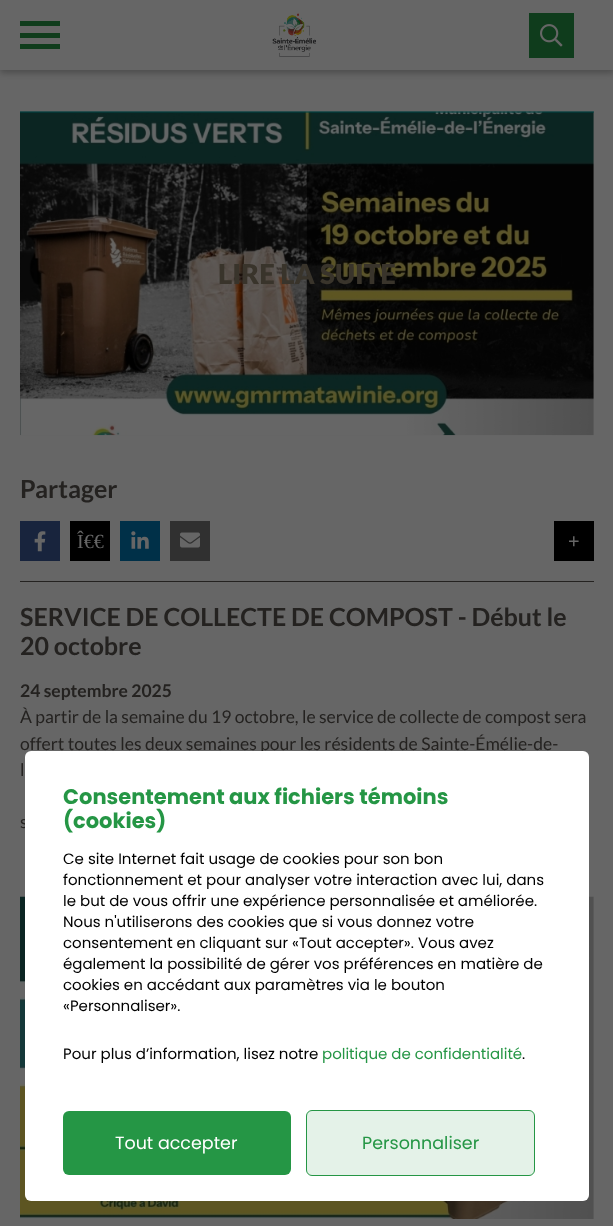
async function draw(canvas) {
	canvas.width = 613;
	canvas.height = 1226;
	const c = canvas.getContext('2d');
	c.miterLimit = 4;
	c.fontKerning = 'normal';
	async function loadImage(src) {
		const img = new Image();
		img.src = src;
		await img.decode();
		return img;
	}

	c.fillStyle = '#666';
	c.fillRect(0, 0, 613, 1226);
	c.fillStyle = '#00000040';
	c.filter = 'blur(3px)';
	c.beginPath();
	c.rect(0, 3, 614, 70);
	c.fill();
	c.filter = 'none';
	for (const [x, y, w, h, color] of [
		[0, 0, 613, 70, '#666'],
		[20, 21, 40, 5, '#0f3c1c'],
		[20, 33, 40, 5, '#0f3c1c'],
		[20, 44, 40, 5, '#0f3c1c'],
	]) {
		c.fillStyle = color;
		c.fillRect(x, y, w, h);
	}
	c.drawImage(await loadImage('img1.png'), 272, 13, 44, 44);
	c.fillRect(529, 13, 45, 45);
	c.drawImage(await loadImage('img2.png'), 540, 24, 23, 23);
	c.fillStyle = '#242220';
	c.fillRect(20, 581, 574, 1);
	c.drawImage(await loadImage('img3.png'), 20, 111, 574, 325);
	c.fillStyle = '#00464680';
	c.fillRect(20, 111, 574, 2);
	c.font = '900 27.5px Lato';
	c.fillStyle = '#39342b';
	c.fillText('LIRE LA SUITE', 218, 284);
	c.font = 'bold 25px Lato';
	c.fillStyle = '#242220';
	c.fillText('Partager', 20, 498);
	c.fillStyle = '#18243d';
	c.fillRect(20, 521, 40, 40);
	c.drawImage(await loadImage('img4.png'), 34, 531, 12, 21);
	c.fillStyle = '#000';
	c.fillRect(70, 521, 40, 40);
	c.font = '20px Liberation Serif';
	c.fillStyle = '#666';
	c.fillText('Î€€', 77, 548);
	c.fillStyle = '#003048';
	c.fillRect(120, 521, 40, 40);
	c.drawImage(await loadImage('img5.png'), 131, 531, 18, 18);
	c.fillStyle = '#303030';
	c.fillRect(170, 521, 40, 40);
	c.drawImage(await loadImage('img6.png'), 180, 532, 20, 16);
	c.fillStyle = '#000';
	c.fillRect(554, 521, 40, 40);
	c.font = '20px Lato';
	c.fillStyle = '#666';
	c.fillText('+', 568, 548);
	c.font = 'bold 25px Lato';
	c.fillStyle = '#242220';
	c.fillText('SERVICE DE COLLECTE DE COMPOST - Début le', 20, 626);
	c.fillText('20 octobre', 20, 655);
	c.font = 'bold 17.5px Lato';
	c.fillText('24 septembre 2025', 20, 697);
	c.font = '17.5px Lato';
	for (const [text, x, y] of [
		['À partir de la semaine du 19 octobre, le service de collecte de compost sera', 20, 723],
		['offert toutes les deux semaines pour les résidents de Sainte-Émélie-de-', 20, 750],
		['l', 20, 776],
		['s', 20, 828],
	]) {
		c.fillText(text, x, y);
	}
	c.drawImage(await loadImage('img7.png'), 20, 896, 574, 323);
	c.fillStyle = '#fff';
	c.beginPath();
	c.roundRect(25, 751, 564, 450, 6);
	c.fill();
	c.font = 'bold 21px Poppins';
	c.fillStyle = '#259645';
	c.fillText('Consentement aux fichiers témoins', 63, 804);
	c.fillText('(cookies)', 63, 828);
	c.font = '15px Poppins';
	c.fillStyle = '#000';
	for (const [text, x, y] of [
		['Ce site Internet fait usage de cookies pour son bon', 63, 864],
		['fonctionnement et pour analyser votre interaction avec lui, dans', 63, 885],
		['le but de vous offrir une expérience personnalisée et améliorée.', 63, 906],
		['Nous n\'utiliserons des cookies que si vous donnez votre', 63, 927],
		['consentement en cliquant sur «Tout accepter». Vous avez', 63, 948],
		['également la possibilité de gérer vos préférences en matière de', 63, 969],
		['cookies en accédant aux paramètres via le bouton', 63, 990],
		['«Personnaliser».', 63, 1011],
		['Pour plus d’information, lisez notre', 63, 1059],
	]) {
		c.fillText(text, x, y);
	}
	c.fillStyle = '#259645';
	c.fillText('politique de confidentialité', 322, 1059);
	c.fillStyle = '#000';
	c.fillText('.', 522, 1059);
	c.fillStyle = '#259645';
	c.beginPath();
	c.roundRect(63, 1111, 228, 64, 6);
	c.fill();
	c.font = '17.5px Poppins';
	c.fillStyle = '#fff';
	c.fillText('Tout accepter', 115, 1149);
	c.fillStyle = '#e4f2e8';
	c.beginPath();
	c.roundRect(306.5, 1110.5, 228, 65, 5.5);
	c.fill();
	c.strokeStyle = '#259645';
	c.stroke();
	c.fillStyle = '#259645';
	c.fillText('Personnaliser', 362, 1149);
}

draw(document.querySelector('canvas'));
